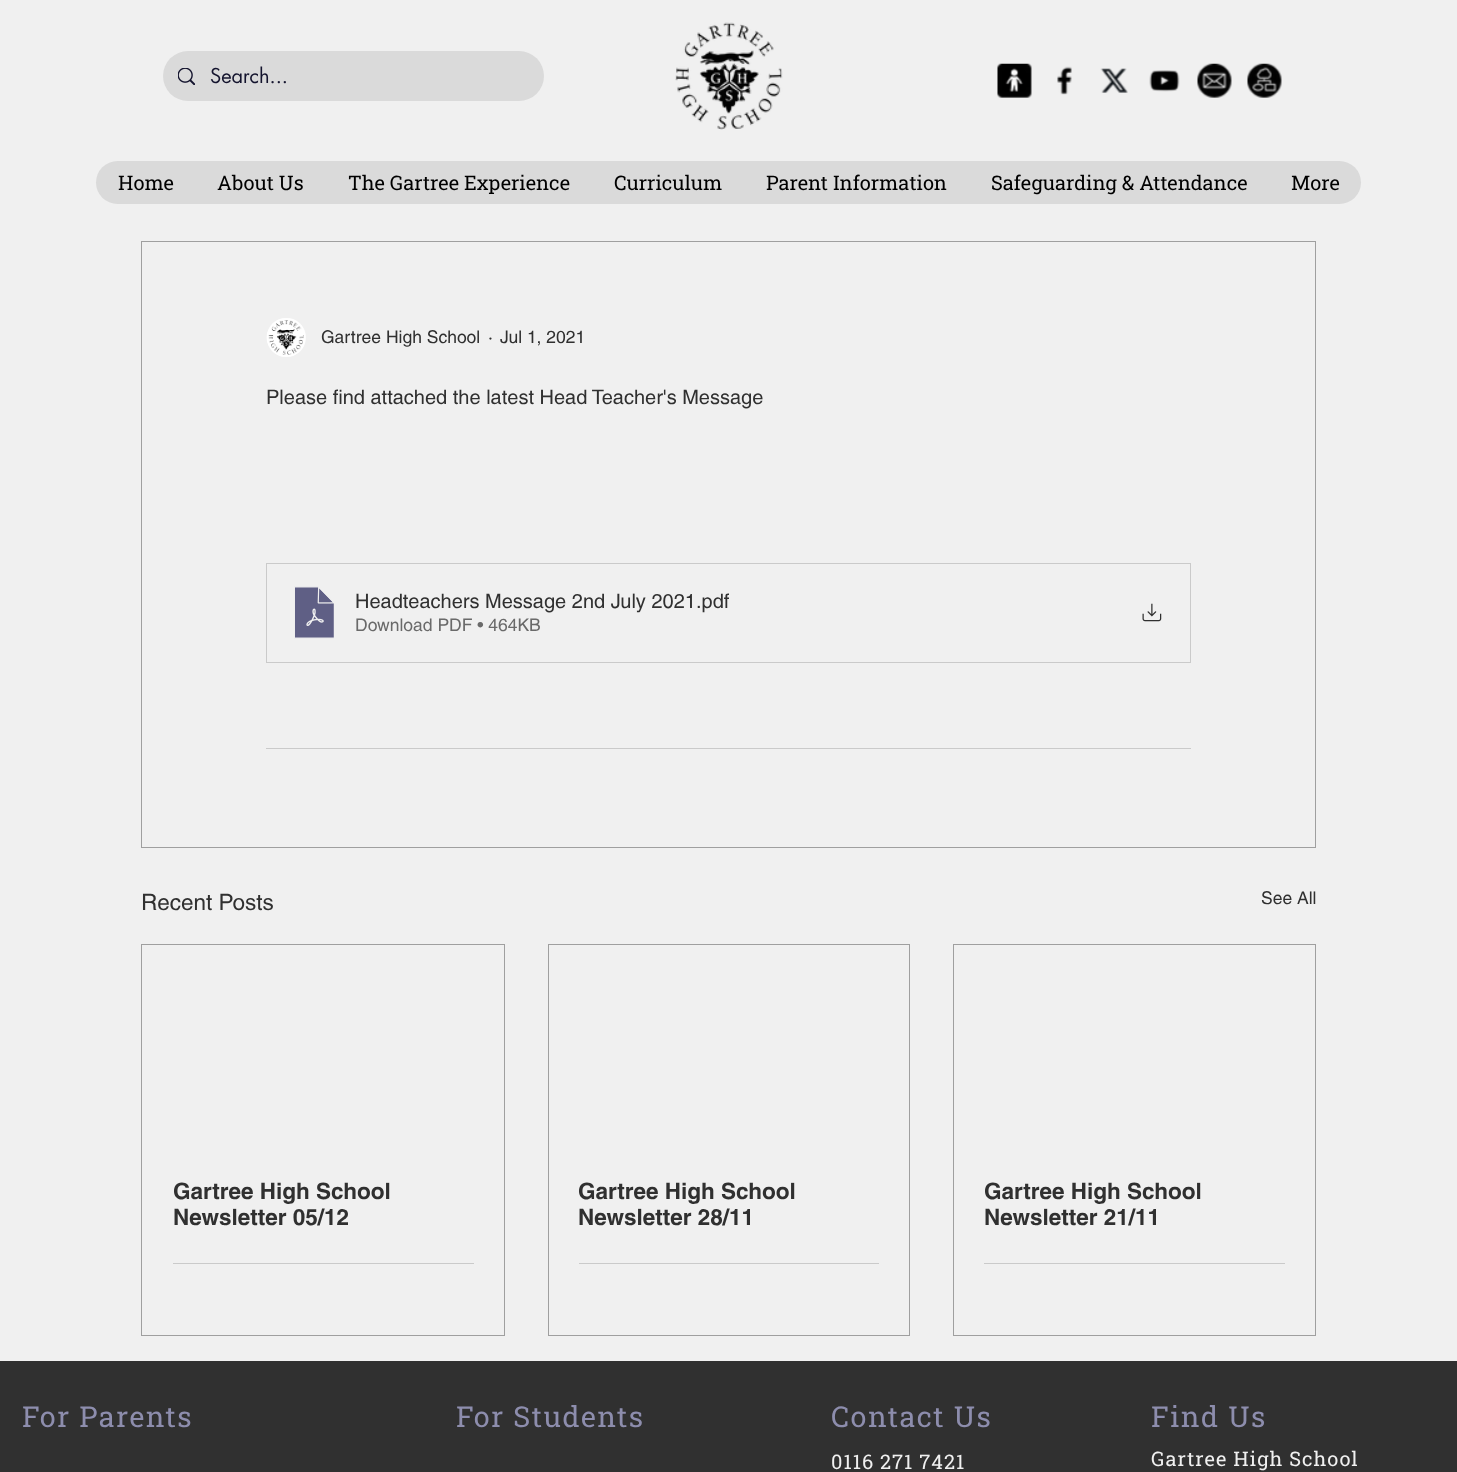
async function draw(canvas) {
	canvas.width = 1457;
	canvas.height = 1472;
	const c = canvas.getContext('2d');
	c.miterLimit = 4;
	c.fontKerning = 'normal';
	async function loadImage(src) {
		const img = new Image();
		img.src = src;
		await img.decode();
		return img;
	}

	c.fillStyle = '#f0f0f0';
	c.fillRect(0, 0, 1457, 1472);
	c.fillStyle = '#dadada';
	c.beginPath();
	c.roundRect(163, 51, 381, 50, 25);
	c.fill();
	c.drawImage(await loadImage('img1.png'), 178, 68, 17, 17);
	c.font = '20px futura';
	c.fillStyle = '#14142e';
	c.fillText('Search...', 210, 83);
	c.drawImage(await loadImage('img2.png'), 675, 22, 108, 108);
	c.drawImage(await loadImage('img3.png'), 997, 63, 35, 35);
	c.drawImage(await loadImage('img4.png'), 1057, 66, 15, 29);
	c.drawImage(await loadImage('img5.png'), 1100, 68, 28, 25);
	c.drawImage(await loadImage('img6.png'), 1149, 70, 31, 22);
	c.drawImage(await loadImage('img7.png'), 1197, 63, 35, 35);
	c.drawImage(await loadImage('img8.png'), 1247, 63, 35, 35);
	c.fillStyle = '#dadada';
	c.beginPath();
	c.roundRect(96, 161, 1265, 43, 21.5);
	c.fill();
	c.font = '20px Roboto Slab';
	c.fillStyle = '#000';
	for (const [text, x, y] of [
		['Home', 118, 190],
		['About Us', 217, 190],
		['The Gartree Experience', 348, 190],
		['Curriculum', 614, 190],
		['Parent Information', 766, 190],
		['Safeguarding & Attendance', 991, 190],
		['More', 1291, 190],
	]) {
		c.fillText(text, x, y);
	}
	c.strokeStyle = '#9f9f9f';
	c.strokeRect(141.5, 241.5, 1174, 606);
	c.drawImage(await loadImage('img9.png'), 266, 318, 40, 39);
	c.font = '17.5px helvetica';
	c.fillStyle = '#303030';
	for (const [text, x, y] of [
		['Gartree High School', 321, 343],
		['·', 488, 343],
		['Jul 1, 2021', 500, 343],
	]) {
		c.fillText(text, x, y);
	}
	c.font = '20px helvetica';
	c.fillText('Please find attached the latest Head Teacher\'s Message', 266, 404);
	c.strokeStyle = '#cacaca';
	c.strokeRect(266.5, 563.5, 924, 99);
	c.drawImage(await loadImage('img10.png'), 294, 586, 40, 53);
	c.fillText('Headteachers Message 2nd July 2021', 355, 608);
	c.fillText('.pdf', 696, 608);
	c.font = '17.5px helvetica';
	c.fillStyle = '#6a6a6a';
	c.fillText('Download PDF • 464KB', 355, 631);
	c.drawImage(await loadImage('img11.png'), 1142, 603, 20, 19);
	c.fillStyle = '#cacaca';
	c.fillRect(266, 748, 925, 1);
	c.font = '22.5px helvetica';
	c.fillStyle = '#303030';
	c.fillText('Recent Posts', 141, 910);
	c.font = '17.5px helvetica';
	c.fillText('See All', 1261, 904);
	c.strokeStyle = '#9f9f9f';
	c.strokeRect(141.5, 944.5, 363, 391);
	c.font = 'bold 22.5px helvetica';
	c.fillText('Gartree High School', 173, 1199);
	c.fillText('Newsletter 05/12', 173, 1225);
	c.fillStyle = '#cacaca';
	c.fillRect(173, 1263, 301, 1);
	c.strokeRect(548.5, 944.5, 361, 391);
	c.fillStyle = '#303030';
	c.fillText('Gartree High School', 578, 1199);
	c.fillText('Newsletter 28/11', 578, 1225);
	c.fillStyle = '#cacaca';
	c.fillRect(579, 1263, 300, 1);
	c.strokeRect(953.5, 944.5, 362, 391);
	c.fillStyle = '#303030';
	c.fillText('Gartree High School', 984, 1199);
	c.fillText('Newsletter 21/11', 984, 1225);
	c.fillStyle = '#cacaca';
	c.fillRect(984, 1263, 301, 1);
	c.fillStyle = '#303030';
	c.fillRect(0, 1361, 1457, 111);
	c.letterSpacing = '1.5px';
	c.font = '28.75px Roboto Slab';
	c.fillStyle = '#8d8dad';
	for (const [text, x, y] of [
		['For Parents', 22, 1427],
		['For Students', 456, 1427],
		['Contact Us', 831, 1427],
	]) {
		c.fillText(text, x, y);
	}
	c.letterSpacing = '1px';
	c.font = '20px Roboto Slab';
	c.fillStyle = '#f0f0f0';
	c.fillText('0116 271 7421', 831, 1469);
	c.letterSpacing = '1.5px';
	c.font = '28.75px Roboto Slab';
	c.fillStyle = '#8d8dad';
	c.fillText('Find Us', 1151, 1427);
	c.letterSpacing = '1px';
	c.font = '20px Roboto Slab';
	c.fillStyle = '#f0f0f0';
	c.fillText('Gartree High School', 1151, 1466);
}

draw(document.querySelector('canvas'));
